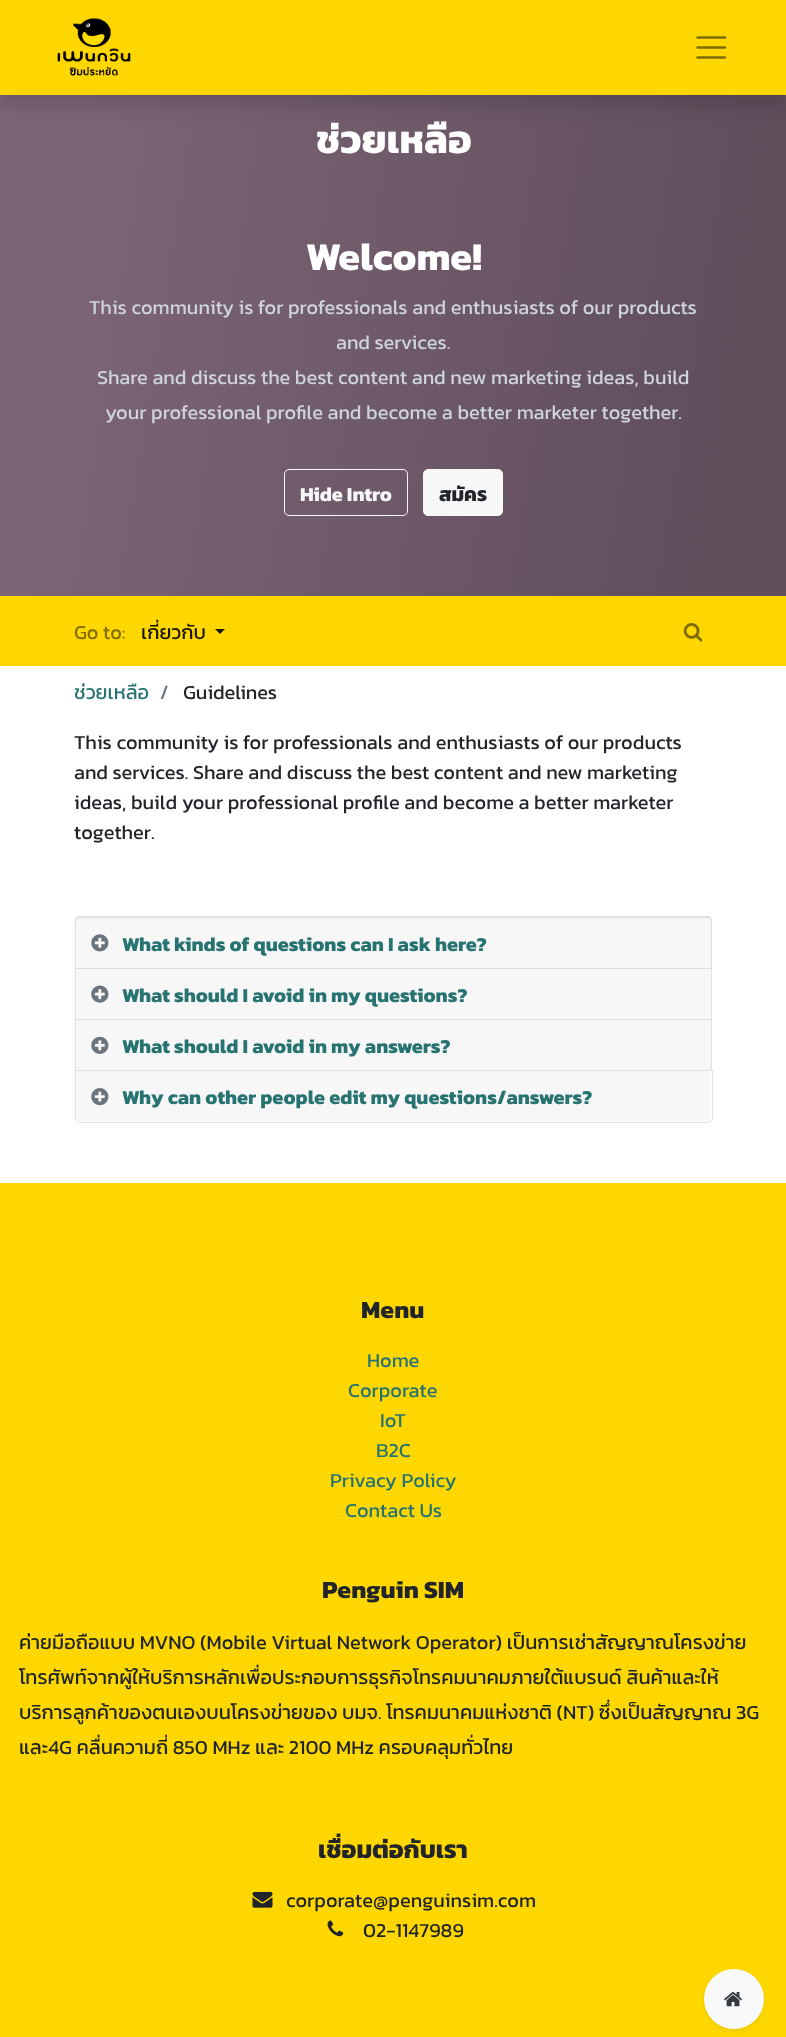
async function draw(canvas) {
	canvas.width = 786;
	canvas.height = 2037;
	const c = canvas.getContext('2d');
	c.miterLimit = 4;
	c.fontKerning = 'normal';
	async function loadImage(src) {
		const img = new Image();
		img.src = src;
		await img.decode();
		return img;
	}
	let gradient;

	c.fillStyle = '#fff';
	c.fillRect(0, 0, 786, 2037);
	gradient = c.createLinearGradient(-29, 279, 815, 412);
	gradient.addColorStop(0.1, '#7c6576');
	gradient.addColorStop(0.9, '#604e5b');
	c.fillStyle = gradient;
	c.fillRect(0, 95, 786, 501);
	c.fillStyle = '#00000026';
	c.filter = 'blur(10px)';
	c.beginPath();
	c.rect(0, 10, 786, 95);
	c.fill();
	c.filter = 'none';
	c.fillStyle = '#ffd700';
	c.fillRect(0, 0, 786, 95);
	c.drawImage(await loadImage('img1.png'), 57, 18, 74, 58);
	c.beginPath();
	c.moveTo(697.5, 37.5);
	c.lineTo(725, 37.5);
	c.moveTo(697.5, 47.5);
	c.lineTo(725, 47.5);
	c.moveTo(697.5, 57.5);
	c.lineTo(725, 57.5);
	c.strokeStyle = '#806c00';
	c.lineWidth = 2.5;
	c.lineCap = 'round';
	c.stroke();
	c.font = 'bold 39.5px Kanit';
	c.fillStyle = '#fff';
	c.fillText('ช่วยเหลือ', 316, 153);
	c.fillText('Welcome!', 306, 270);
	c.font = '20px Kanit';
	c.fillStyle = '#ced4da';
	for (const [text, x, y] of [
		['This community is for professionals and enthusiasts of our products', 89, 314],
		['and services.', 336, 349],
		['Share and discuss the best content and new marketing ideas, build', 97, 384],
		['your professional profile and become a better marketer together.', 105, 419],
	]) {
		c.fillText(text, x, y);
	}
	c.beginPath();
	c.roundRect(284.5, 469.5, 123, 46, 4.5);
	c.strokeStyle = '#f7f7f7';
	c.lineWidth = 1;
	c.stroke();
	c.font = 'bold 20px Kanit';
	c.fillStyle = '#f7f7f7';
	c.fillText('Hide Intro', 300, 501);
	c.beginPath();
	c.roundRect(423.5, 469.5, 79, 46, 4.5);
	c.fill();
	c.stroke();
	c.fillStyle = '#212529';
	c.fillText('สมัคร', 439, 501);
	c.fillStyle = '#ffd700';
	c.fillRect(0, 596, 786, 70);
	c.font = '20px Kanit';
	c.fillStyle = '#806c00';
	c.fillText('Go to:', 74, 639);
	c.fillStyle = '#1a1600';
	c.fillText('เกี่ยวกับ', 141, 639);
	c.beginPath();
	c.moveTo(215, 629);
	c.lineTo(225, 629);
	c.lineTo(220, 634);
	c.closePath();
	c.fill();
	c.drawImage(await loadImage('img2.png'), 683, 623, 20, 19);
	c.fillStyle = '#267372';
	c.fillText('ช่วยเหลือ', 74, 699);
	c.fillStyle = '#6c757d';
	c.fillText('/', 160, 699);
	c.fillStyle = '#212529';
	for (const [text, x, y] of [
		['Guidelines', 183, 699],
		['This community is for professionals and enthusiasts of our products', 74, 749],
		['and services. Share and discuss the best content and new marketing', 74, 779],
		['ideas, build your professional profile and become a better marketer', 74, 809],
		['together.', 74, 839],
	]) {
		c.fillText(text, x, y);
	}
	c.fillStyle = '#dfdfdf';
	c.beginPath();
	c.moveTo(80, 916);
	c.lineTo(708, 916);
	c.bezierCurveTo(710, 916, 712, 918, 712, 921);
	c.lineTo(712, 968);
	c.lineTo(75, 968);
	c.lineTo(75, 921);
	c.bezierCurveTo(75, 918, 77, 916, 80, 916);
	c.closePath();
	c.moveTo(80, 918);
	c.lineTo(708, 918);
	c.bezierCurveTo(710, 918, 711, 919, 711, 921);
	c.lineTo(711, 968);
	c.lineTo(76, 968);
	c.lineTo(76, 921);
	c.bezierCurveTo(76, 919, 78, 918, 80, 918);
	c.closePath();
	c.fill('evenodd');
	c.fillStyle = '#00000008';
	c.fillRect(76, 918, 635, 50);
	c.drawImage(await loadImage('img3.png'), 91, 934, 18, 18);
	c.font = 'bold 20px Kanit';
	c.fillStyle = '#267372';
	c.fillText('What kinds of questions can I ask here?', 122, 951);
	c.fillStyle = '#dfdfdf';
	c.beginPath();
	c.moveTo(75, 968);
	c.lineTo(712, 968);
	c.lineTo(711, 969);
	c.lineTo(76, 969);
	c.closePath();
	c.fill();
	c.fillStyle = '#0000001f';
	c.beginPath();
	c.moveTo(712, 968);
	c.lineTo(712, 1019);
	c.lineTo(711, 1019);
	c.lineTo(711, 969);
	c.closePath();
	c.fill();
	c.beginPath();
	c.moveTo(75, 1019);
	c.lineTo(75, 968);
	c.lineTo(76, 969);
	c.lineTo(76, 1019);
	c.closePath();
	c.fill();
	c.fillStyle = '#f7f7f7';
	c.fillRect(76, 969, 635, 50);
	c.drawImage(await loadImage('img4.png'), 91, 985, 18, 18);
	c.fillStyle = '#267372';
	c.fillText('What should I avoid in my questions?', 122, 1002);
	c.fillStyle = '#dfdfdf';
	c.beginPath();
	c.moveTo(75, 1019);
	c.lineTo(712, 1019);
	c.lineTo(711, 1020);
	c.lineTo(76, 1020);
	c.closePath();
	c.fill();
	c.fillStyle = '#0000001f';
	c.beginPath();
	c.moveTo(712, 1019);
	c.lineTo(712, 1070);
	c.lineTo(711, 1070);
	c.lineTo(711, 1020);
	c.closePath();
	c.fill();
	c.beginPath();
	c.moveTo(75, 1070);
	c.lineTo(75, 1019);
	c.lineTo(76, 1020);
	c.lineTo(76, 1070);
	c.closePath();
	c.fill();
	c.fillStyle = '#f7f7f7';
	c.fillRect(76, 1020, 635, 50);
	c.drawImage(await loadImage('img5.png'), 91, 1036, 18, 18);
	c.fillStyle = '#267372';
	c.fillText('What should I avoid in my answers?', 122, 1053);
	c.beginPath();
	c.roundRect(75.5, 1070.5, 637, 52, [0, 0, 4.5, 4.5]);
	c.strokeStyle = '#dfdfdf';
	c.stroke();
	c.fillStyle = '#f7f7f7';
	c.beginPath();
	c.roundRect(76, 1071, 635, 50, [0, 0, 4, 4]);
	c.fill();
	c.drawImage(await loadImage('img6.png'), 91, 1088, 18, 18);
	c.fillStyle = '#267372';
	c.fillText('Why can other people edit my questions/answers?', 122, 1104);
	c.fillStyle = '#ffd700';
	c.fillRect(0, 1183, 786, 854);
	c.font = 'bold 25px Kanit';
	c.fillStyle = '#212529';
	c.fillText('Menu', 361, 1318);
	c.font = '20px Kanit';
	c.fillStyle = '#267372';
	for (const [text, x, y] of [
		['Home', 367, 1367],
		['Corporate', 348, 1397],
		['IoT', 380, 1427],
		['B2C', 376, 1457],
		['Privacy Policy', 330, 1487],
		['Contact Us', 345, 1517],
	]) {
		c.fillText(text, x, y);
	}
	c.font = 'bold 25px Kanit';
	c.fillStyle = '#212529';
	c.fillText('Penguin SIM', 322, 1598);
	c.font = '20px Kanit';
	for (const [text, x, y] of [
		['ค่ายมือถือแบบ MVNO (Mobile Virtual Network Operator) เป็นการเช่าสัญญาณโครงข่าย', 19, 1649],
		['โทรศัพท์จากผู้ให้บริการหลักเพื่อประกอบการธุรกิจโทรคมนาคมภายใต้แบรนด์ สินค้าและให้', 19, 1684],
		['บริการลูกค้าของตนเองบนโครงข่ายของ บมจ. โทรคมนาคมแห่งชาติ (NT) ซึ่งเป็นสัญญาณ 3G', 19, 1719],
		['และ4G คลื่นความถี่ 850 MHz และ 2100 MHz ครอบคลุมทั่วไทย', 19, 1754],
	]) {
		c.fillText(text, x, y);
	}
	c.font = 'bold 25px Kanit';
	c.fillText('เชื่อมต่อกับเรา', 318, 1858);
	c.drawImage(await loadImage('img7.png'), 252, 1891, 21, 17);
	c.font = '20px Kanit';
	c.fillText('corporate@penguinsim.com', 286, 1907);
	c.drawImage(await loadImage('img8.png'), 327, 1920, 17, 17);
	c.fillText('02-1147989', 363, 1937);
	c.fillStyle = '#00000012';
	c.filter = 'blur(2.5px)';
	c.beginPath();
	c.roundRect(704, 1971, 60, 60, 30);
	c.fill();
	c.filter = 'none';
	c.fillStyle = '#f8f9fa';
	c.beginPath();
	c.arc(734, 1999, 30, 0, 2 * Math.PI);
	c.fill();
	c.drawImage(await loadImage('img9.png'), 724, 1991, 18, 16);
}

draw(document.querySelector('canvas'));
